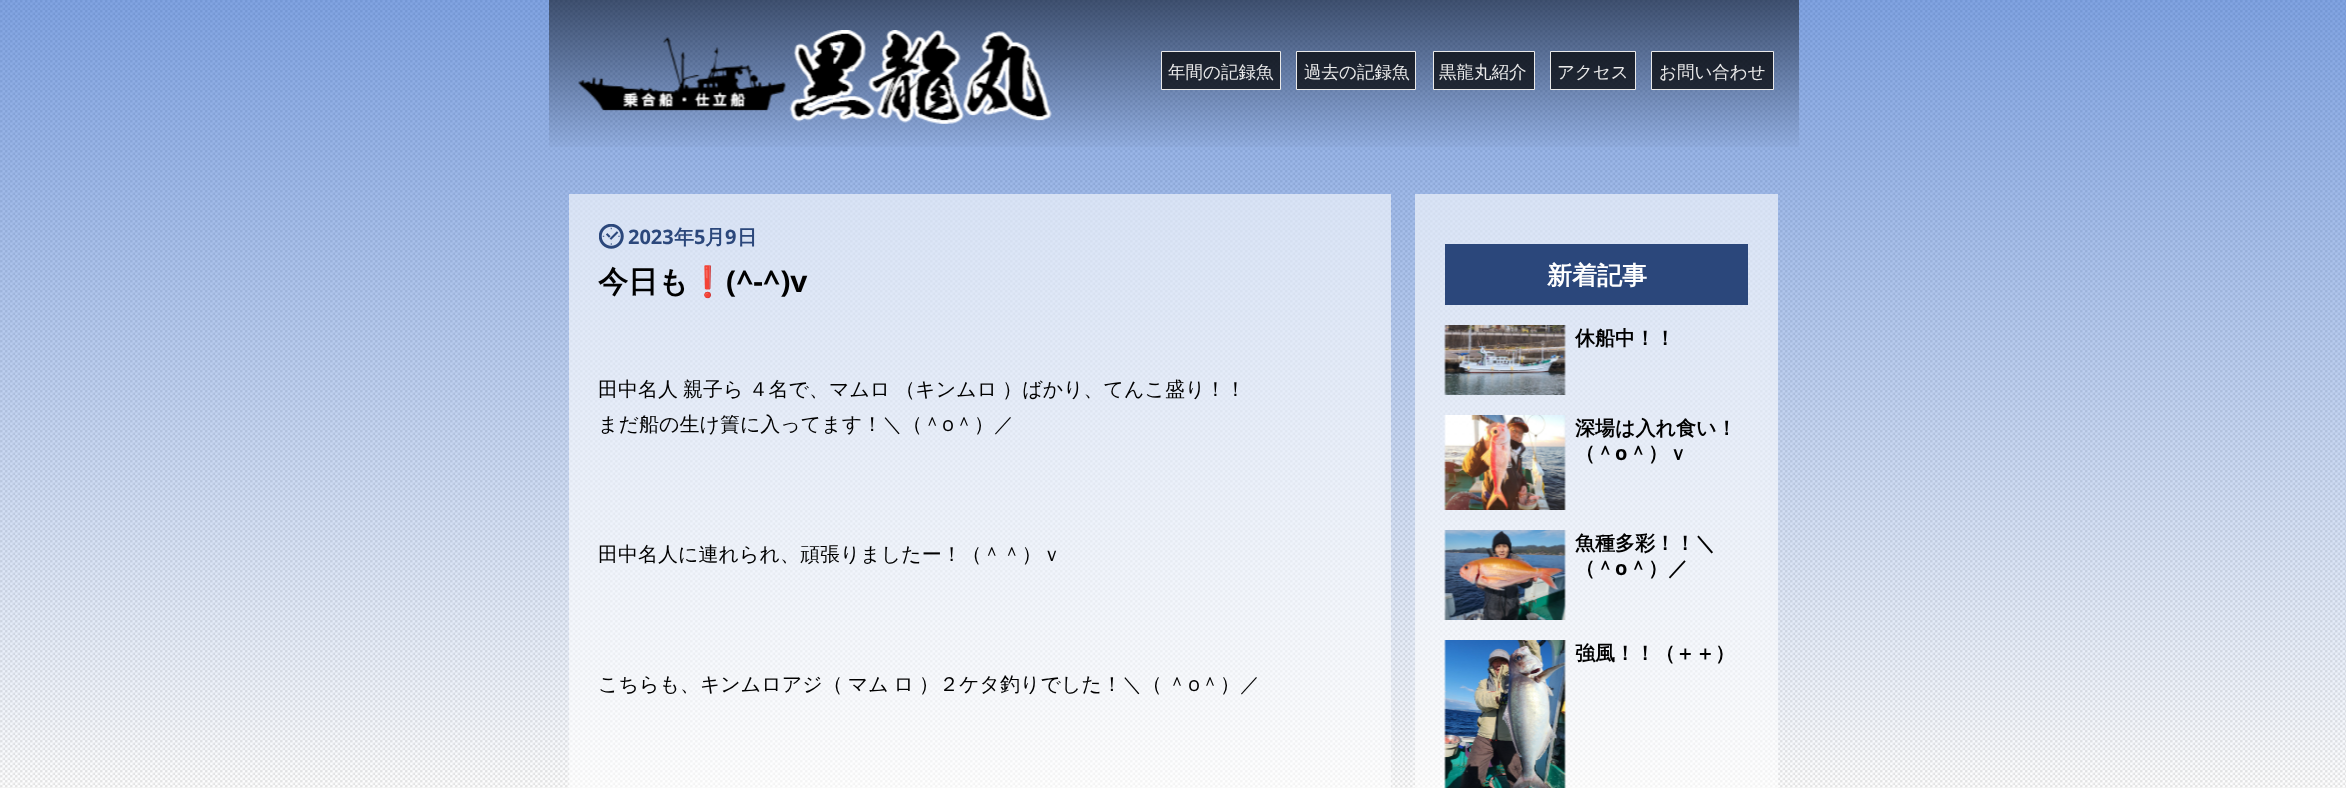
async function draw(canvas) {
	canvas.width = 2346;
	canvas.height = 788;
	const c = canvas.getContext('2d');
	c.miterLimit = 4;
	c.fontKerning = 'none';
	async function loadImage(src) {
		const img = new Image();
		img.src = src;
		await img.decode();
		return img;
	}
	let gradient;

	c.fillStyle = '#fff';
	c.fillRect(0, 0, 2346, 788);
	c.drawImage(await loadImage('img1.png'), 0, 0, 2346, 788);
	gradient = c.createLinearGradient(1174, 0, 1174, 154);
	gradient.addColorStop(0, '#00000080');
	gradient.addColorStop(1, '#00000000');
	c.fillStyle = gradient;
	c.fillRect(549, 0, 1250, 147);
	c.drawImage(await loadImage('img2.png'), 578, 30, 474, 94);
	c.fillStyle = '#000000b3';
	c.beginPath();
	c.rect(1161.5, 51.5, 119, 38);
	c.fill();
	c.strokeStyle = '#eaeaea';
	c.stroke();
	c.font = '500 17.5px WenQuanYi Zen Hei';
	c.fillStyle = '#eaeaea';
	c.fillText('年間の記録魚', 1168, 78);
	c.fillStyle = '#000000b3';
	c.beginPath();
	c.rect(1296.5, 51.5, 119, 38);
	c.fill();
	c.stroke();
	c.fillStyle = '#eaeaea';
	c.fillText('過去の記録魚', 1304, 78);
	c.fillStyle = '#000000b3';
	c.beginPath();
	c.rect(1433.5, 51.5, 101, 38);
	c.fill();
	c.stroke();
	c.fillStyle = '#eaeaea';
	c.fillText('黒龍丸紹介', 1439, 78);
	c.fillStyle = '#000000b3';
	c.beginPath();
	c.rect(1550.5, 51.5, 85, 38);
	c.fill();
	c.stroke();
	c.fillStyle = '#eaeaea';
	c.fillText('アクセス', 1557, 78);
	c.fillStyle = '#000000b3';
	c.beginPath();
	c.rect(1651.5, 51.5, 122, 38);
	c.fill();
	c.stroke();
	c.fillStyle = '#eaeaea';
	c.fillText('お問い合わせ', 1659, 78);
	c.fillStyle = '#ffffff99';
	c.fillRect(569, 194, 822, 594);
	c.drawImage(await loadImage('img3.png'), 599, 224, 25, 25);
	c.font = 'bold 20px Open Sans';
	c.fillStyle = '#2b477b';
	c.fillText('2023', 628, 244);
	c.font = 'bold 20px WenQuanYi Zen Hei';
	c.fillText('年', 674, 244);
	c.font = 'bold 20px Open Sans';
	c.fillText('5', 694, 244);
	c.font = 'bold 20px WenQuanYi Zen Hei';
	c.fillText('月', 705, 244);
	c.font = 'bold 20px Open Sans';
	c.fillText('9', 725, 244);
	c.font = 'bold 20px WenQuanYi Zen Hei';
	c.fillText('日', 737, 244);
	c.font = 'bold 30px WenQuanYi Zen Hei';
	c.fillStyle = '#000';
	c.fillText('今日も', 598, 292);
	c.font = 'bold 30px Noto Color Emoji';
	c.fillText('❗', 689, 292);
	c.font = 'bold 30px Open Sans';
	c.fillText('(^-^)v', 726, 292);
	c.wordSpacing = '-1px';
	c.font = '500 20px WenQuanYi Zen Hei';
	c.fillText('田中名人 親子ら ４名で、マムロ （キンムロ ）ばかり、てんこ盛り！！', 598, 396);
	c.wordSpacing = '0px';
	c.fillText('まだ船の生け簀に入ってます！＼（＾', 598, 431);
	c.font = '20px Open Sans';
	c.fillText('o', 942, 431);
	c.font = '500 20px WenQuanYi Zen Hei';
	c.fillText('＾）／', 954, 431);
	c.fillText('田中名人に連れられ、頑張りましたー！（＾＾）ｖ', 598, 561);
	c.wordSpacing = '-1px';
	c.fillText('こちらも、キンムロアジ（ マム ロ ）２ケタ釣りでした！＼（ ＾', 598, 691);
	c.wordSpacing = '0px';
	c.font = '20px Open Sans';
	c.fillText('o', 1188, 691);
	c.font = '500 20px WenQuanYi Zen Hei';
	c.fillText('＾）／', 1200, 691);
	c.fillStyle = '#ffffff99';
	c.fillRect(1415, 194, 363, 594);
	c.fillStyle = '#2b477b';
	c.fillRect(1445, 244, 303, 61);
	c.font = 'bold 25px WenQuanYi Zen Hei';
	c.fillStyle = '#fff';
	c.fillText('新着記事', 1547, 284);
	c.drawImage(await loadImage('img4.png'), 1444, 325, 122, 70);
	c.font = 'bold 20px WenQuanYi Zen Hei';
	c.fillStyle = '#000';
	c.fillText('休船中！！', 1575, 345);
	c.drawImage(await loadImage('img5.png'), 1444, 415, 122, 95);
	c.fillText('深場は入れ食い！', 1575, 435);
	c.fillText('（＾', 1575, 460);
	c.font = 'bold 20px Open Sans';
	c.fillText('o', 1615, 460);
	c.font = 'bold 20px WenQuanYi Zen Hei';
	c.fillText('＾）ｖ', 1628, 460);
	c.drawImage(await loadImage('img6.png'), 1444, 530, 122, 90);
	c.fillText('魚種多彩！！＼', 1575, 550);
	c.fillText('（＾', 1575, 575);
	c.font = 'bold 20px Open Sans';
	c.fillText('o', 1615, 575);
	c.font = 'bold 20px WenQuanYi Zen Hei';
	c.fillText('＾）／', 1628, 575);
	c.drawImage(await loadImage('img7.png'), 1444, 640, 122, 148);
	c.fillText('強風！！（＋＋）', 1575, 660);
}

draw(document.querySelector('canvas'));
